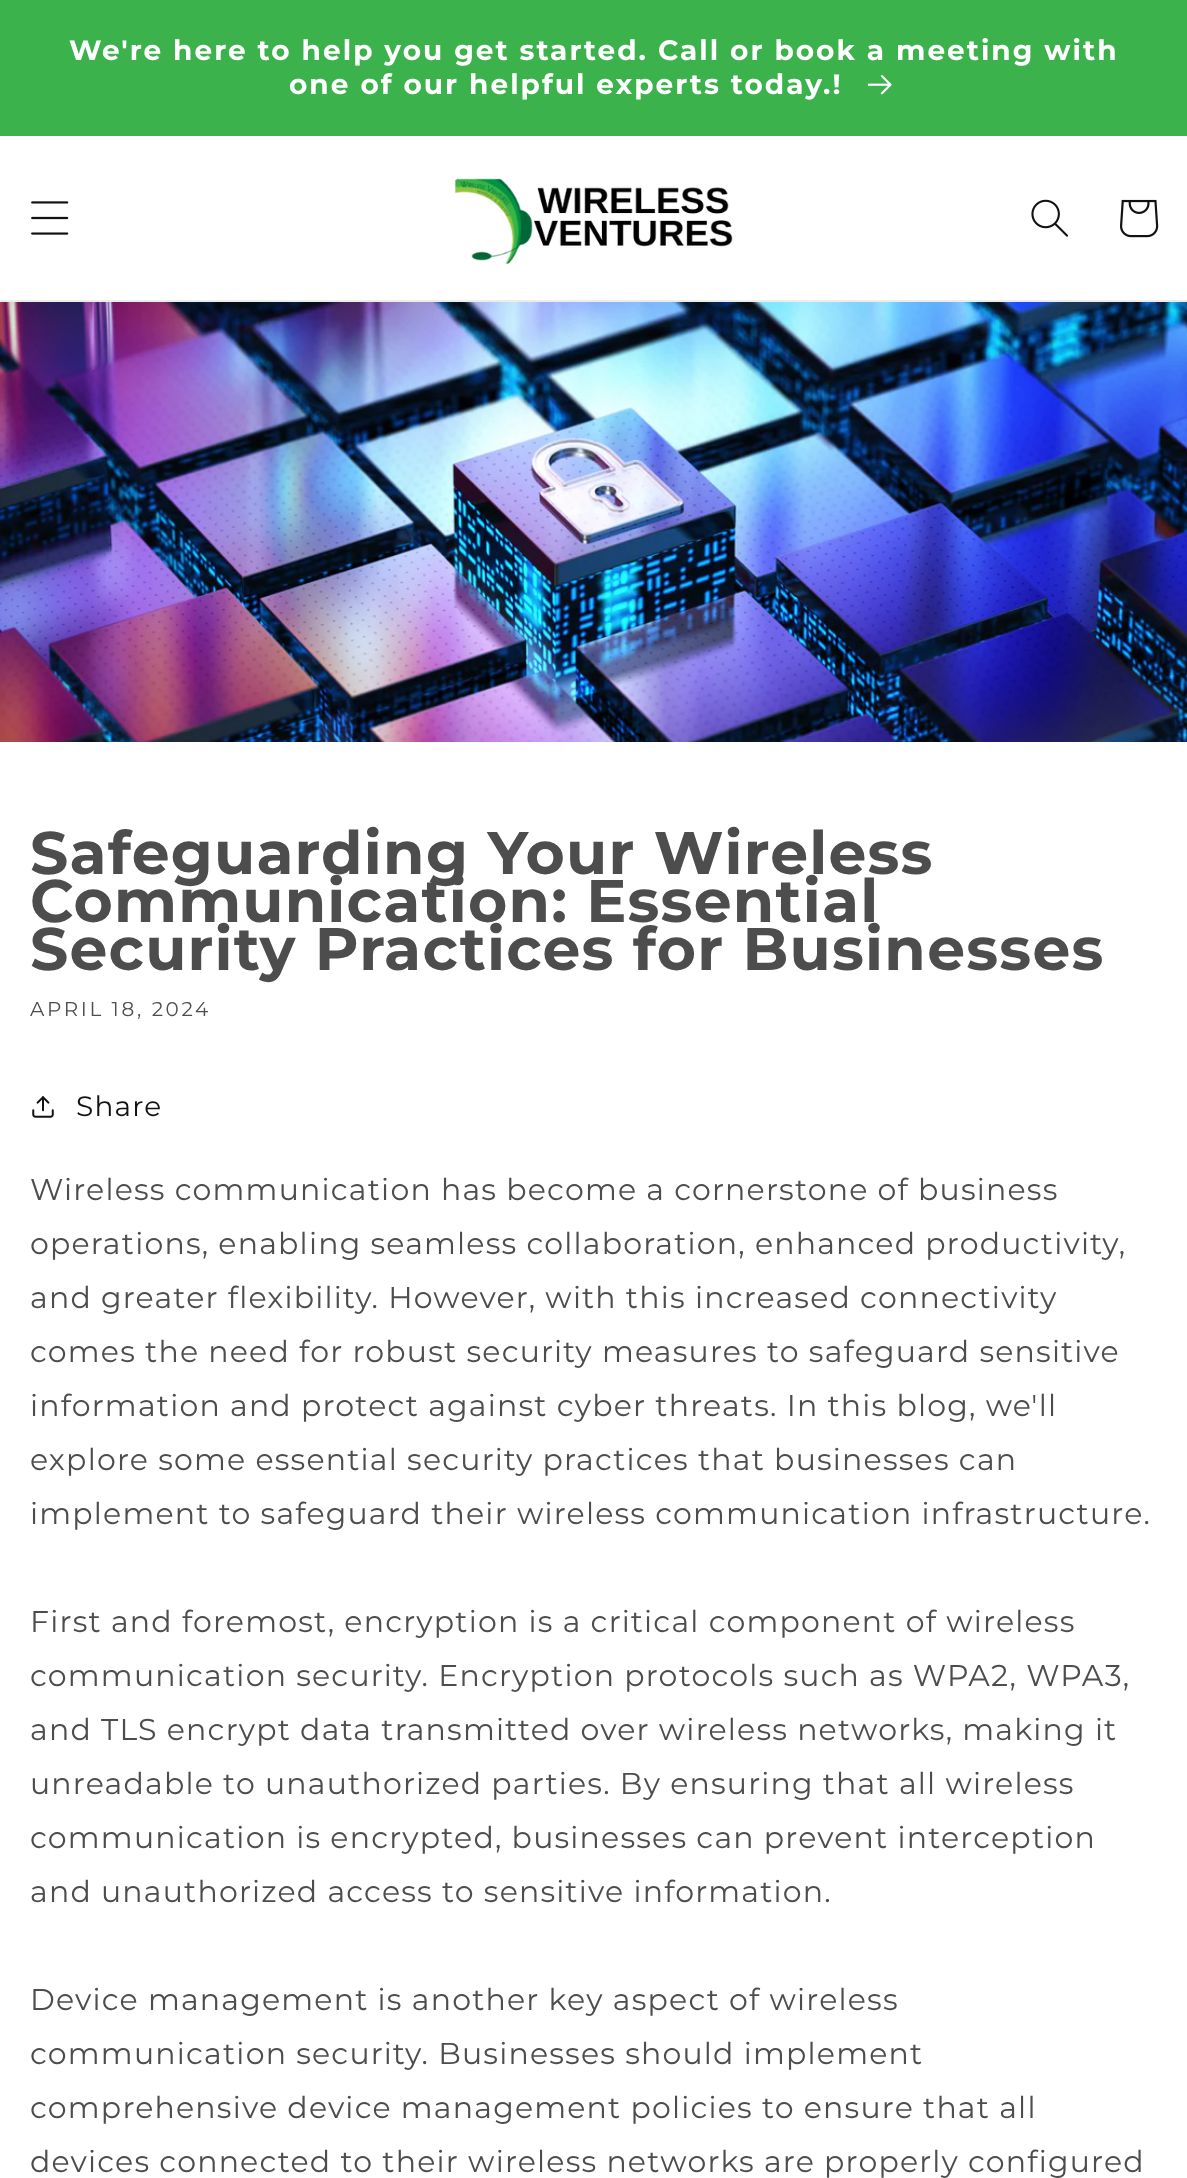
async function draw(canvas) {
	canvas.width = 1187;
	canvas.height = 2178;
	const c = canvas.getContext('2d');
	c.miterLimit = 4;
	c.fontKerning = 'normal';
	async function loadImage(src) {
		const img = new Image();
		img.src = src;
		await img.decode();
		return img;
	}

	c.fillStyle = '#fff';
	c.fillRect(0, 0, 1187, 2178);
	c.fillStyle = '#3bb24c';
	c.fillRect(0, 0, 1187, 136);
	c.letterSpacing = '2px';
	c.font = 'bold 28px Montserrat';
	c.fillStyle = '#fff';
	c.fillText('We\'re here to help you get started. Call or book a meeting with', 69, 60);
	c.fillText('one of our helpful experts today.!', 289, 94);
	c.drawImage(await loadImage('img1.png'), 868, 75, 24, 20);
	c.fillStyle = '#ececec';
	c.fillRect(0, 300, 1187, 2);
	c.drawImage(await loadImage('img2.png'), 31, 201, 38, 34);
	c.drawImage(await loadImage('img3.png'), 454, 178, 279, 87);
	c.drawImage(await loadImage('img4.png'), 1031, 199, 37, 38);
	c.drawImage(await loadImage('img5.png'), 1120, 199, 39, 39);
	c.drawImage(await loadImage('img6.png'), 0, 302, 1187, 440);
	c.letterSpacing = '1.2px';
	c.font = 'bold 60px Montserrat';
	c.fillStyle = '#4d4d4d';
	for (const [text, x, y] of [
		['Safeguarding Your Wireless', 30, 874],
		['Communication: Essential', 30, 922],
		['Security Practices for Businesses', 30, 970],
	]) {
		c.fillText(text, x, y);
	}
	c.letterSpacing = '2.6px';
	c.font = '20px Montserrat';
	c.fillText('APRIL 18, 2024', 30, 1016);
	c.drawImage(await loadImage('img7.png'), 32, 1096, 22, 22);
	c.letterSpacing = '1.2px';
	c.font = '28px Montserrat';
	c.fillStyle = '#121212';
	c.fillText('Share', 76, 1116);
	c.font = '30px Montserrat';
	c.fillStyle = '#4d4d4d';
	for (const [text, x, y] of [
		['Wireless communication has become a cornerstone of business', 30, 1200],
		['operations, enabling seamless collaboration, enhanced productivity,', 30, 1254],
		['and greater flexibility. However, with this increased connectivity', 30, 1308],
		['comes the need for robust security measures to safeguard sensitive', 30, 1362],
		['information and protect against cyber threats. In this blog, we\'ll', 30, 1416],
		['explore some essential security practices that businesses can', 30, 1470],
		['implement to safeguard their wireless communication infrastructure.', 30, 1524],
		['First and foremost, encryption is a critical component of wireless', 30, 1632],
		['communication security. Encryption protocols such as WPA2, WPA3,', 30, 1686],
		['and TLS encrypt data transmitted over wireless networks, making it', 30, 1740],
		['unreadable to unauthorized parties. By ensuring that all wireless', 30, 1794],
		['communication is encrypted, businesses can prevent interception', 30, 1848],
		['and unauthorized access to sensitive information.', 30, 1902],
		['Device management is another key aspect of wireless', 30, 2010],
		['communication security. Businesses should implement', 30, 2064],
		['comprehensive device management policies to ensure that all', 30, 2118],
		['devices connected to their wireless networks are properly configured', 30, 2172],
	]) {
		c.fillText(text, x, y);
	}
}

draw(document.querySelector('canvas'));
